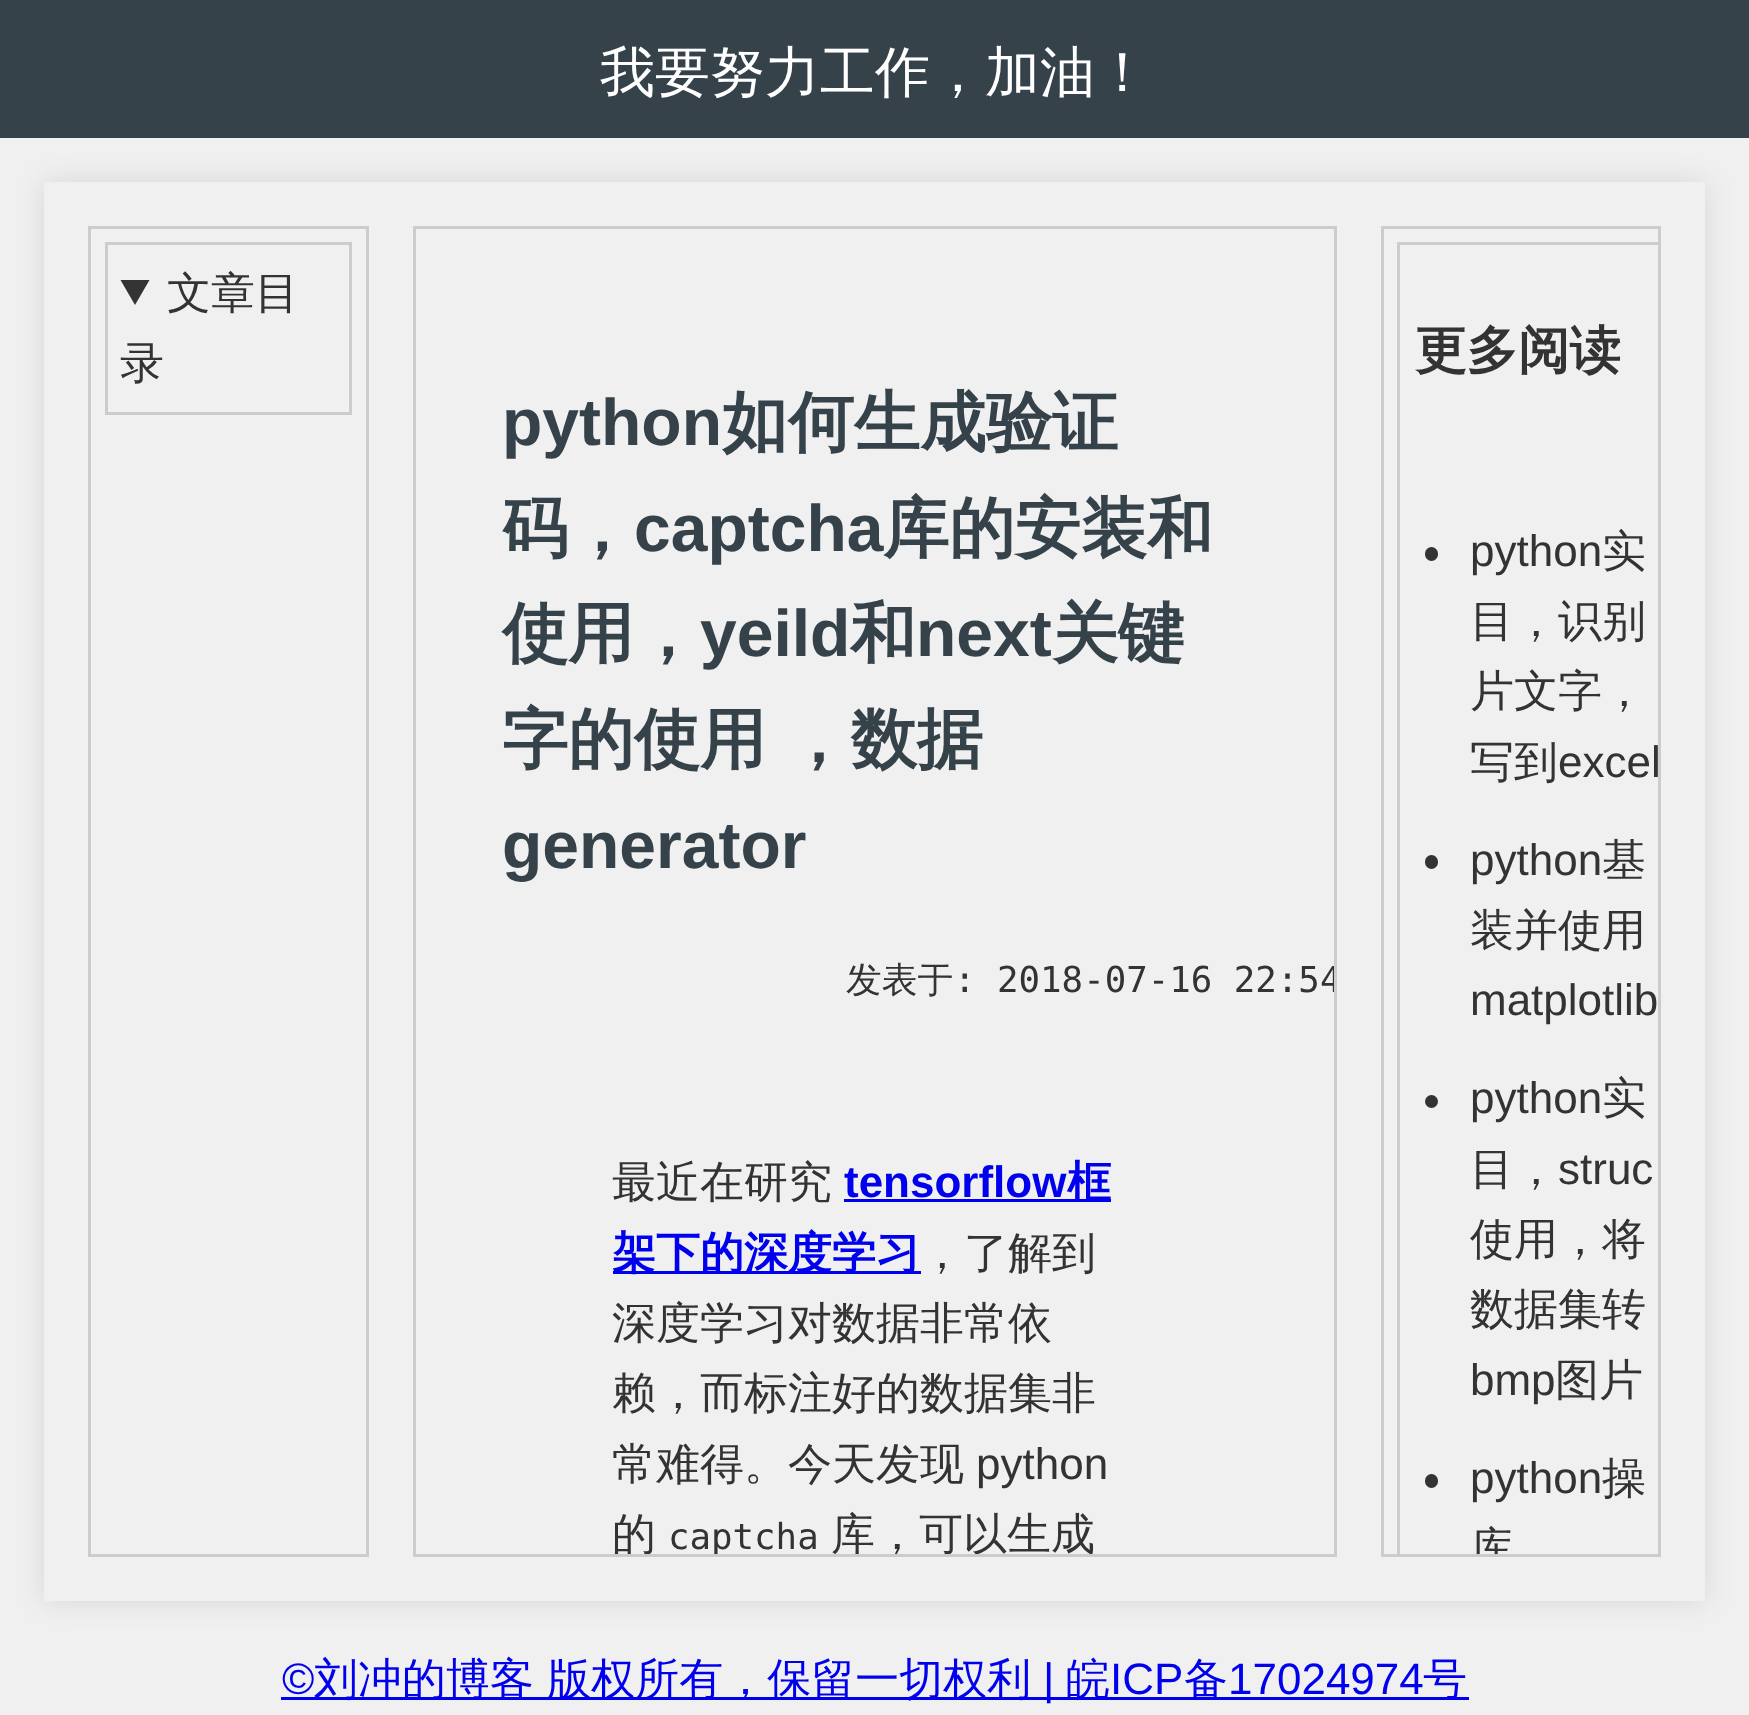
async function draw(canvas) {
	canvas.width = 1749;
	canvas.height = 1715;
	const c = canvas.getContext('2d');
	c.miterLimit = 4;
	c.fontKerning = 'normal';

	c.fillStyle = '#f0f0f0';
	c.fillRect(0, 0, 1749, 1715);
	c.fillStyle = '#35424a';
	c.fillRect(0, 0, 1749, 138);
	c.font = '500 55px WenQuanYi Zen Hei';
	c.fillStyle = '#fff';
	c.fillText('我要努力工作，加油！', 600, 91);
	c.fillStyle = '#0000001a';
	c.filter = 'blur(14px)';
	c.beginPath();
	c.rect(44, 182, 1661, 1419);
	c.fill();
	c.filter = 'none';
	c.fillStyle = '#f0f0f0';
	c.fillRect(44, 182, 1661, 1419);
	c.strokeStyle = '#ccc';
	c.lineWidth = 3;
	c.strokeRect(89.5, 227.5, 278, 1328);
	c.strokeRect(106.5, 243.5, 244, 170);
	c.fillStyle = '#333';
	c.beginPath();
	c.moveTo(120.5, 280);
	c.lineTo(149.5, 280);
	c.lineTo(135, 305);
	c.closePath();
	c.fill();
	c.font = '500 44px WenQuanYi Zen Hei';
	c.fillText('文章目', 167, 308);
	c.fillText('录', 120, 378);
	c.strokeRect(414.5, 227.5, 921, 1328);
	c.font = 'bold 66px Liberation Sans';
	c.fillStyle = '#35424a';
	c.fillText('python', 502, 445);
	c.font = 'bold 66px WenQuanYi Zen Hei';
	c.fillText('如何生成验证', 722, 445);
	c.fillText('码，', 502, 551);
	c.font = 'bold 66px Liberation Sans';
	c.fillText('captcha', 634, 551);
	c.font = 'bold 66px WenQuanYi Zen Hei';
	c.fillText('库的安装和', 883, 551);
	c.fillText('使用，', 502, 656);
	c.font = 'bold 66px Liberation Sans';
	c.fillText('yeild', 700, 656);
	c.font = 'bold 66px WenQuanYi Zen Hei';
	c.fillText('和', 850, 656);
	c.font = 'bold 66px Liberation Sans';
	c.fillText('next', 916, 656);
	c.font = 'bold 66px WenQuanYi Zen Hei';
	c.fillText('关键', 1052, 656);
	c.wordSpacing = '-1px';
	c.fillText('字的使用 ，数据', 502, 762);
	c.wordSpacing = '0px';
	c.font = 'bold 66px Liberation Sans';
	c.fillText('generator', 502, 868);
	c.font = '500 35.75px WenQuanYi Zen Hei';
	c.fillStyle = '#333';
	c.fillText('发表于', 846, 992);
	c.save();
	c.beginPath();
	c.rect(415, 228, 919, 1326);
	c.clip();
	c.font = '35.75px DejaVu Sans Mono';
	c.fillText(': 2018-07-16 22:54', 954, 992);
	c.restore();
	c.font = '500 44px WenQuanYi Zen Hei';
	c.fillText('最近在研究', 612, 1197);
	c.font = 'bold 44px Liberation Sans';
	c.fillStyle = '#00e';
	c.fillText('tensorflow', 844, 1197);
	c.fillRect(844, 1199, 267, 3);
	c.font = 'bold 44px WenQuanYi Zen Hei';
	c.fillText('框', 1067, 1197);
	c.fillRect(613, 1271, 308, 3);
	c.fillText('架下的深度学习', 612, 1268);
	c.font = '500 44px WenQuanYi Zen Hei';
	c.fillStyle = '#333';
	for (const [text, x, y] of [
		['，了解到', 920, 1268],
		['深度学习对数据非常依', 612, 1338],
		['赖，而标注好的数据集非', 612, 1408],
		['常难得。今天发现', 612, 1479],
	]) {
		c.fillText(text, x, y);
	}
	c.font = '44px Liberation Sans';
	c.fillText('python', 976, 1479);
	c.save();
	c.beginPath();
	c.rect(415, 228, 919, 1326);
	c.clip();
	c.font = '500 44px WenQuanYi Zen Hei';
	c.fillText('的', 612, 1549);
	c.font = '35.75px DejaVu Sans Mono';
	c.fillText('captcha', 668, 1549);
	c.font = '500 44px WenQuanYi Zen Hei';
	c.fillText('库，可以生成', 831, 1549);
	c.restore();
	c.strokeRect(1382.5, 227.5, 277, 1328);
	c.fillStyle = '#00e';
	c.fillRect(281, 1697, 1188, 3);
	c.fillText('17024974', 1228, 1694);
	c.save();
	c.beginPath();
	c.rect(1383, 228, 275, 1326);
	c.clip();
	c.strokeRect(1398.5, 243.5, 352, 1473);
	c.restore();
	c.font = 'bold 51.5px WenQuanYi Zen Hei';
	c.fillStyle = '#333';
	c.fillText('更多阅读', 1415, 368);
	c.beginPath();
	c.roundRect(1425, 547, 13, 14, 6.5);
	c.fill();
	c.font = '44px Liberation Sans';
	c.fillText('python', 1470, 566);
	c.font = '500 44px WenQuanYi Zen Hei';
	for (const [text, x, y] of [
		['实', 1602, 566],
		['目，识别', 1470, 636],
		['片文字，', 1470, 706],
		['写到', 1470, 777],
	]) {
		c.fillText(text, x, y);
	}
	c.font = '44px Liberation Sans';
	c.fillText('excel', 1558, 777);
	c.beginPath();
	c.roundRect(1425, 855, 13, 14, 6.5);
	c.fill();
	c.fillText('python', 1470, 875);
	c.font = '500 44px WenQuanYi Zen Hei';
	c.fillText('基', 1602, 875);
	c.fillText('装并使用', 1470, 945);
	c.font = '44px Liberation Sans';
	c.fillText('matplotlib', 1470, 1015);
	c.beginPath();
	c.arc(1431.5, 1101.5, 6.5, 0, 2 * Math.PI);
	c.fill();
	c.fillText('python', 1470, 1113);
	c.font = '500 44px WenQuanYi Zen Hei';
	c.fillText('实', 1602, 1113);
	c.fillText('目，', 1470, 1184);
	c.font = '44px Liberation Sans';
	c.fillText('struc', 1558, 1184);
	c.font = '500 44px WenQuanYi Zen Hei';
	c.fillText('使用，将', 1470, 1254);
	c.fillText('数据集转', 1470, 1324);
	c.font = '44px Liberation Sans';
	c.fillText('bmp', 1470, 1395);
	c.font = '500 44px WenQuanYi Zen Hei';
	c.fillText('图片', 1555, 1395);
	c.beginPath();
	c.roundRect(1425, 1474, 13, 14, 6.5);
	c.fill();
	c.font = '44px Liberation Sans';
	c.fillText('python', 1470, 1493);
	c.font = '500 44px WenQuanYi Zen Hei';
	c.fillText('操', 1602, 1493);
	c.save();
	c.beginPath();
	c.rect(1383, 228, 275, 1326);
	c.clip();
	c.fillText('库', 1470, 1563);
	c.restore();
	c.font = '44px Liberation Sans';
	c.fillStyle = '#00e';
	c.fillText('©', 282, 1694);
	c.font = '500 44px WenQuanYi Zen Hei';
	c.fillText('刘冲的博客 版权所有，保留一切权利', 314, 1694);
	c.font = '44px Liberation Sans';
	c.fillText('|', 1043, 1694);
	c.font = '500 44px WenQuanYi Zen Hei';
	c.fillText('皖', 1066, 1694);
	c.font = '44px Liberation Sans';
	c.fillText('ICP', 1110, 1694);
	c.font = '500 44px WenQuanYi Zen Hei';
	c.fillText('备', 1184, 1694);
	c.fillText('号', 1423, 1694);
}

draw(document.querySelector('canvas'));
